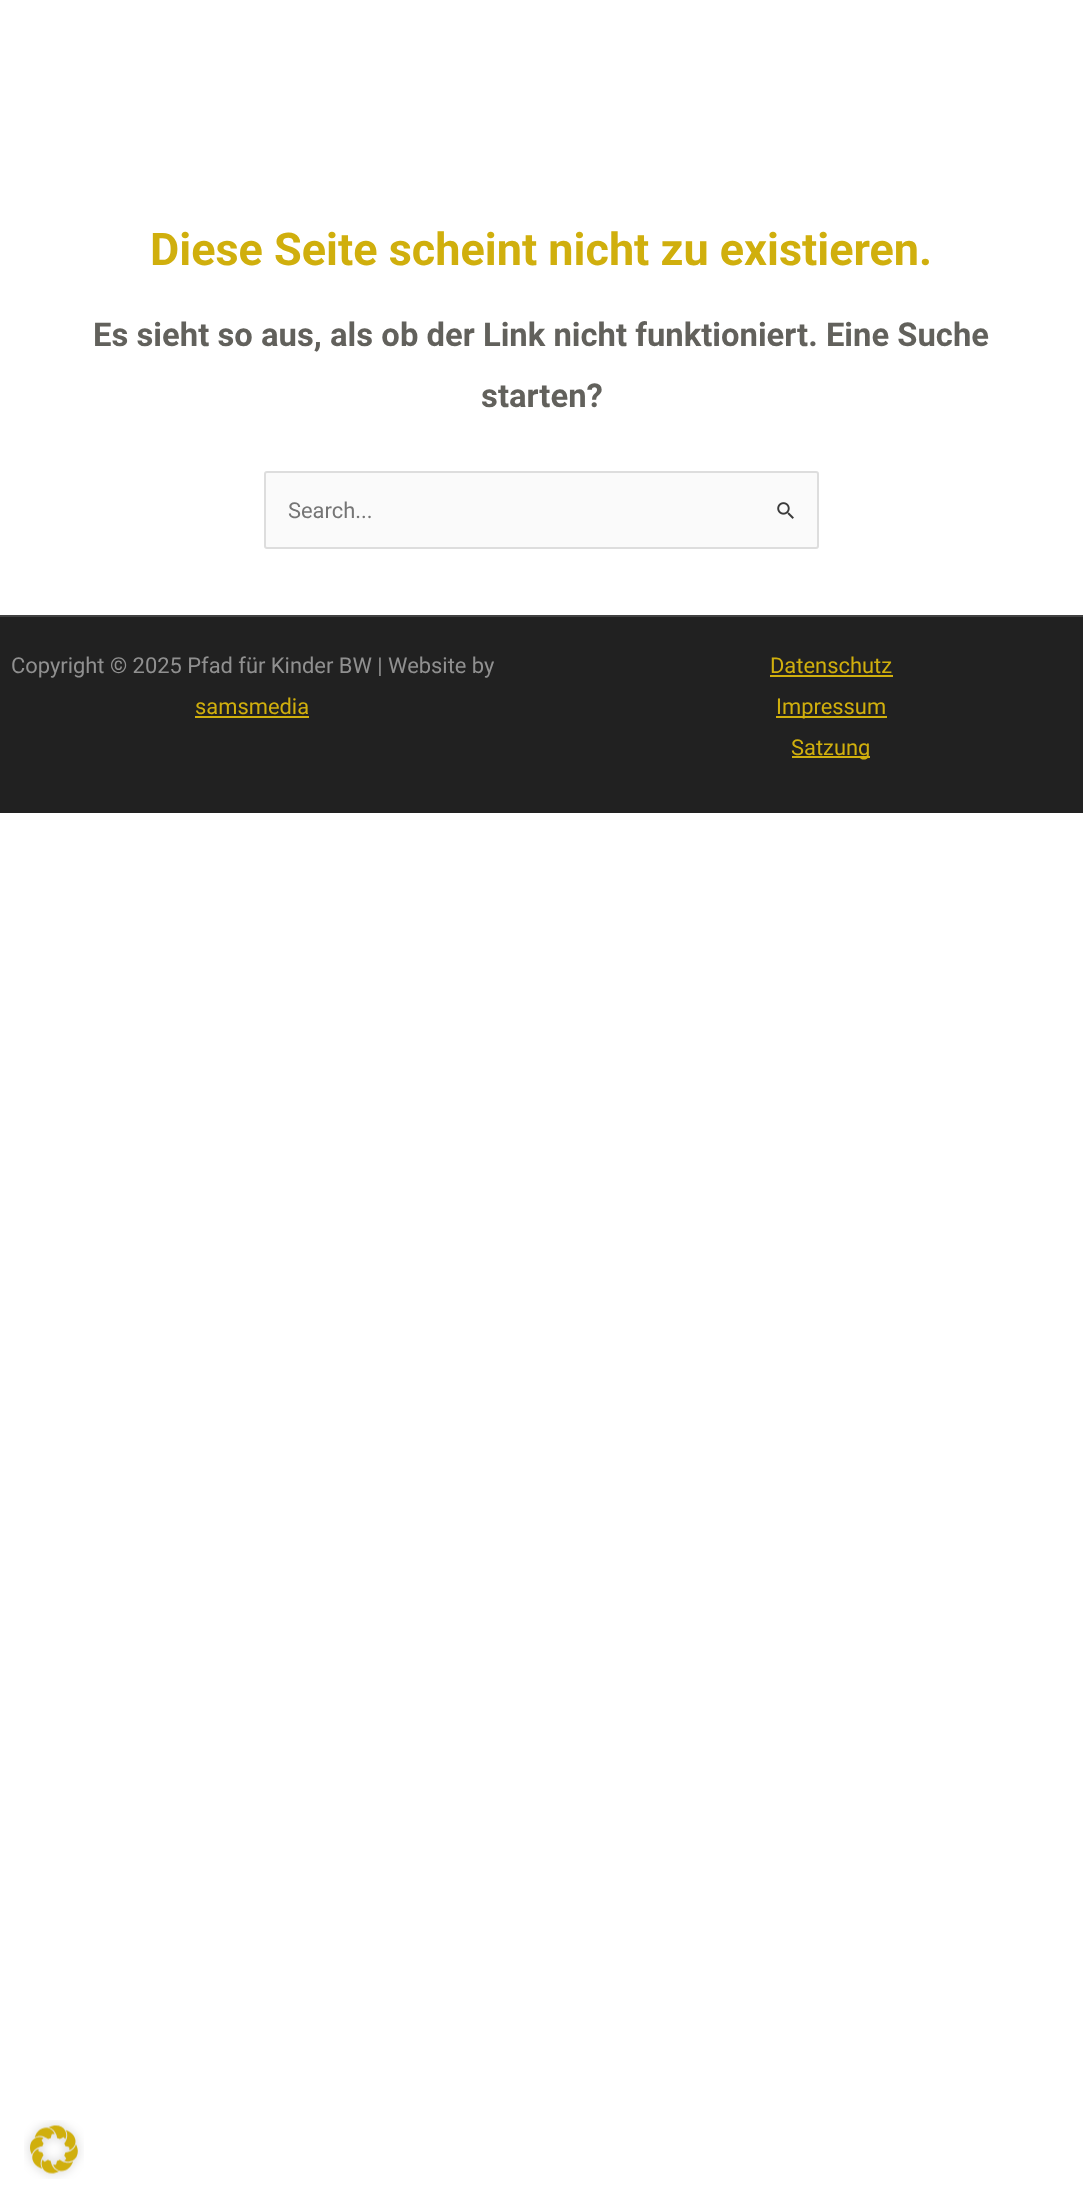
async function draw(canvas) {
	canvas.width = 1083;
	canvas.height = 2203;
	const c = canvas.getContext('2d');
	c.miterLimit = 4;
	c.fontKerning = 'normal';
	async function loadImage(src) {
		const img = new Image();
		img.src = src;
		await img.decode();
		return img;
	}

	c.fillStyle = '#fff';
	c.fillRect(0, 0, 1083, 2203);
	c.font = 'bold 45px Roboto';
	c.fillStyle = '#d0af0d';
	c.fillText('Diese Seite scheint nicht zu existieren.', 150, 265);
	c.font = 'bold 32.8px "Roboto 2"';
	c.fillStyle = '#62615c';
	c.fillText('Es sieht so aus, als ob der Link nicht funktioniert. Eine Suche', 93, 346);
	c.fillText('starten?', 481, 407);
	c.fillStyle = '#fafafa';
	c.beginPath();
	c.roundRect(265, 472, 553, 76, 2);
	c.fill();
	c.strokeStyle = '#ddd';
	c.lineWidth = 2;
	c.stroke();
	c.font = '21.9px Roboto';
	c.fillStyle = '#757575';
	c.fillText('Search...', 288, 518);
	c.drawImage(await loadImage('img1.png'), 777, 502, 17, 17);
	c.fillStyle = '#212121';
	c.fillRect(0, 617, 1083, 196);
	c.fillStyle = '#424242';
	c.fillRect(0, 615, 1083, 2);
	c.fillStyle = '#909090';
	c.fillText('Copyright © 2025 Pfad für Kinder BW | Website by', 11, 673);
	c.fillStyle = '#d0af0d';
	c.fillText('samsmedia', 195, 714);
	c.fillRect(195, 716, 114, 2);
	c.fillText('Datenschutz', 770, 673);
	c.fillRect(770, 675, 123, 2);
	c.fillRect(776, 716, 111, 2);
	c.fillText('Impressum', 776, 714);
	c.fillRect(792, 756, 78, 2);
	c.fillText('Satzung', 791, 755);
	c.drawImage(await loadImage('img2.png'), 24, 2120, 60, 59);
}

draw(document.querySelector('canvas'));
